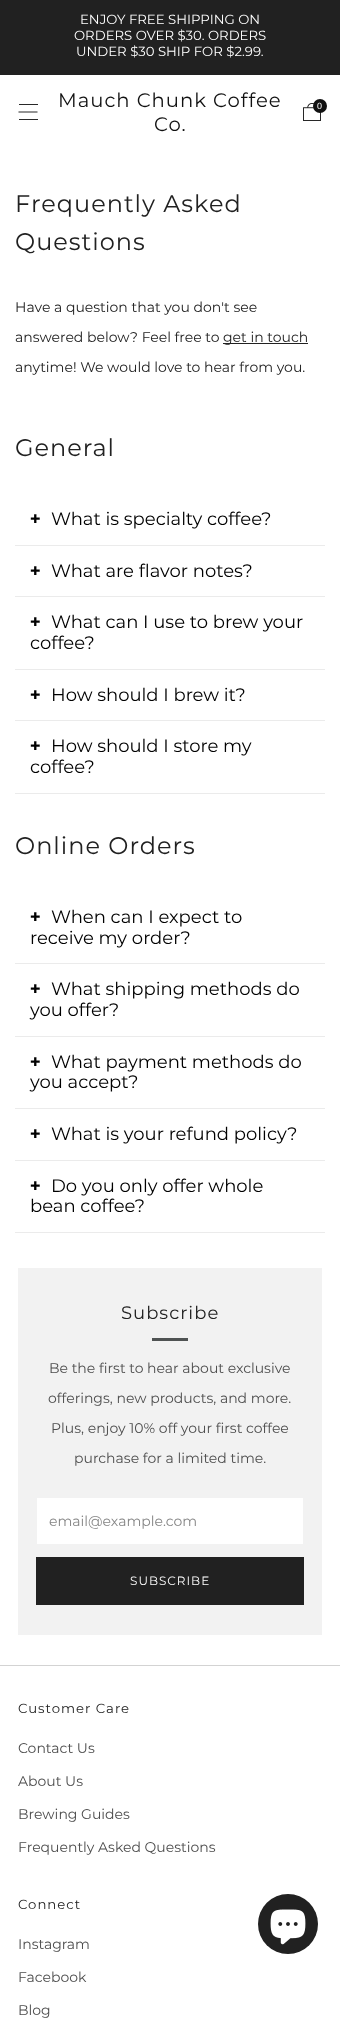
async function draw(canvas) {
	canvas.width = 340;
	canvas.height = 2039;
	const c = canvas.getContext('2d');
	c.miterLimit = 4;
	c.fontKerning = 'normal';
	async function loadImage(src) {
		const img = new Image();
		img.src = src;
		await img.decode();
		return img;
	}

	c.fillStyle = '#fff';
	c.fillRect(0, 0, 340, 2039);
	c.fillStyle = '#212121';
	c.fillRect(0, 0, 340, 75);
	c.font = '13.25px Montserrat';
	c.fillStyle = '#fff';
	for (const [text, x, y] of [
		['ENJOY FREE SHIPPING ON', 80, 24],
		['ORDERS OVER $30. ORDERS', 74, 40],
		['UNDER $30 SHIP FOR $2.99.', 76, 56],
	]) {
		c.fillText(text, x, y);
	}
	c.fillStyle = '#292929';
	c.fillRect(19, 104, 19, 1);
	c.beginPath();
	c.moveTo(18.5, 112);
	c.lineTo(37.5, 112);
	c.strokeStyle = '#111';
	c.lineWidth = 0.9;
	c.stroke();
	c.fillRect(19, 119, 19, 1);
	c.letterSpacing = '1px';
	c.font = '19.6px Montserrat';
	c.fillStyle = '#111';
	c.fillText('Mauch Chunk Coffee', 58, 107);
	c.fillText('Co.', 154, 131);
	c.drawImage(await loadImage('img1.png'), 303, 103, 18, 18);
	c.beginPath();
	c.arc(320, 106, 7, 0, 2 * Math.PI);
	c.fill();
	c.letterSpacing = '0px';
	c.font = '9px Liberation Sans';
	c.fillStyle = '#fff';
	c.fillText('0', 317, 109);
	c.letterSpacing = '1px';
	c.font = '24px Montserrat';
	c.fillStyle = '#212121';
	c.fillText('Frequently Asked', 15, 212);
	c.fillText('Questions', 15, 250);
	c.letterSpacing = '0px';
	c.font = '14px Montserrat';
	c.fillText('Have a question that you don\'t see', 15, 312);
	c.fillText('answered below? Feel free to', 15, 342);
	c.fillRect(223, 343, 85, 1);
	c.fillText('get in touch', 223, 342);
	c.fillText('anytime! We would love to hear from you.', 15, 372);
	c.letterSpacing = '1px';
	c.font = '24px Montserrat';
	c.fillText('General', 15, 456);
	c.fillStyle = '#ebebeb';
	c.fillRect(15, 545, 310, 1);
	c.letterSpacing = '0px';
	c.font = '900 18px Noto Sans';
	c.fillStyle = '#000';
	c.fillText('+', 30, 525);
	c.font = '18px Montserrat';
	c.fillText('What is specialty coffee?', 51, 525);
	c.fillStyle = '#ebebeb';
	c.fillRect(15, 596, 310, 1);
	c.font = '900 18px Noto Sans';
	c.fillStyle = '#000';
	c.fillText('+', 30, 577);
	c.font = '18px Montserrat';
	c.fillText('What are flavor notes?', 51, 577);
	c.fillStyle = '#ebebeb';
	c.fillRect(15, 669, 310, 1);
	c.font = '900 18px Noto Sans';
	c.fillStyle = '#000';
	c.fillText('+', 30, 628);
	c.font = '18px Montserrat';
	c.fillText('What can I use to brew your', 51, 628);
	c.fillText('coffee?', 30, 649);
	c.fillStyle = '#ebebeb';
	c.fillRect(15, 720, 310, 1);
	c.font = '900 18px Noto Sans';
	c.fillStyle = '#000';
	c.fillText('+', 30, 701);
	c.font = '18px Montserrat';
	c.fillText('How should I brew it?', 51, 701);
	c.fillStyle = '#ebebeb';
	c.fillRect(15, 793, 310, 1);
	c.font = '900 18px Noto Sans';
	c.fillStyle = '#000';
	c.fillText('+', 30, 752);
	c.font = '18px Montserrat';
	c.fillText('How should I store my', 51, 752);
	c.fillText('coffee?', 30, 773);
	c.letterSpacing = '1px';
	c.font = '24px Montserrat';
	c.fillStyle = '#212121';
	c.fillText('Online Orders', 15, 854);
	c.fillStyle = '#ebebeb';
	c.fillRect(15, 963, 310, 1);
	c.letterSpacing = '0px';
	c.font = '900 18px Noto Sans';
	c.fillStyle = '#000';
	c.fillText('+', 30, 923);
	c.font = '18px Montserrat';
	c.fillText('When can I expect to', 51, 923);
	c.fillText('receive my order?', 30, 944);
	c.fillStyle = '#ebebeb';
	c.fillRect(15, 1036, 310, 1);
	c.font = '900 18px Noto Sans';
	c.fillStyle = '#000';
	c.fillText('+', 30, 995);
	c.font = '18px Montserrat';
	c.fillText('What shipping methods do', 51, 995);
	c.fillText('you offer?', 30, 1016);
	c.fillStyle = '#ebebeb';
	c.fillRect(15, 1108, 310, 1);
	c.font = '900 18px Noto Sans';
	c.fillStyle = '#000';
	c.fillText('+', 30, 1068);
	c.font = '18px Montserrat';
	c.fillText('What payment methods do', 51, 1068);
	c.fillText('you accept?', 30, 1088);
	c.fillStyle = '#ebebeb';
	c.fillRect(15, 1160, 310, 1);
	c.font = '900 18px Noto Sans';
	c.fillStyle = '#000';
	c.fillText('+', 30, 1140);
	c.font = '18px Montserrat';
	c.fillText('What is your refund policy?', 51, 1140);
	c.fillStyle = '#ebebeb';
	c.fillRect(15, 1232, 310, 1);
	c.font = '900 18px Noto Sans';
	c.fillStyle = '#000';
	c.fillText('+', 30, 1192);
	c.font = '18px Montserrat';
	c.fillText('Do you only offer whole', 51, 1192);
	c.fillText('bean coffee?', 30, 1212);
	c.fillStyle = '#f2f2f2';
	c.fillRect(18, 1268, 304, 367);
	c.letterSpacing = '1px';
	c.fillStyle = '#212121';
	c.fillText('Subscribe', 121, 1319);
	c.fillStyle = '#4f5353';
	c.fillRect(152, 1338, 36, 3);
	c.letterSpacing = '0px';
	c.font = '14px Montserrat';
	c.fillStyle = '#4d4d4d';
	for (const [text, x, y] of [
		['Be the first to hear about exclusive', 49, 1373],
		['offerings, new products, and more.', 48, 1403],
		['Plus, enjoy 10% off your first coffee', 51, 1433],
		['purchase for a limited time.', 74, 1463],
	]) {
		c.fillText(text, x, y);
	}
	c.fillStyle = '#fff';
	c.fillRect(37, 1498, 266, 46);
	c.fillStyle = '#858585';
	c.fillText('email@example.com', 49, 1526);
	c.fillStyle = '#212121';
	c.fillRect(36, 1557, 268, 48);
	c.letterSpacing = '1px';
	c.font = '12px Montserrat';
	c.fillStyle = '#fff';
	c.fillText('SUBSCRIBE', 130, 1585);
	c.fillStyle = '#d3d3d3';
	c.fillRect(0, 1665, 340, 1);
	c.font = '13.25px Montserrat';
	c.fillStyle = '#212121';
	c.fillText('Customer Care', 18, 1713);
	c.letterSpacing = '0px';
	c.font = '14px Montserrat';
	c.fillStyle = '#4d4d4d';
	for (const [text, x, y] of [
		['Contact Us', 18, 1753],
		['About Us', 18, 1786],
		['Brewing Guides', 18, 1819],
		['Frequently Asked Questions', 18, 1852],
	]) {
		c.fillText(text, x, y);
	}
	c.letterSpacing = '1px';
	c.font = '13.25px Montserrat';
	c.fillStyle = '#212121';
	c.fillText('Connect', 18, 1909);
	c.letterSpacing = '0px';
	c.font = '14px Montserrat';
	c.fillStyle = '#4d4d4d';
	for (const [text, x, y] of [
		['Instagram', 18, 1949],
		['Facebook', 18, 1982],
		['Blog', 18, 2015],
	]) {
		c.fillText(text, x, y);
	}
	c.fillStyle = '#212121';
	c.beginPath();
	c.arc(288, 1924, 30, 0, 2 * Math.PI);
	c.fill();
	c.drawImage(await loadImage('img2.png'), 270, 1909, 36, 36);
}

draw(document.querySelector('canvas'));
